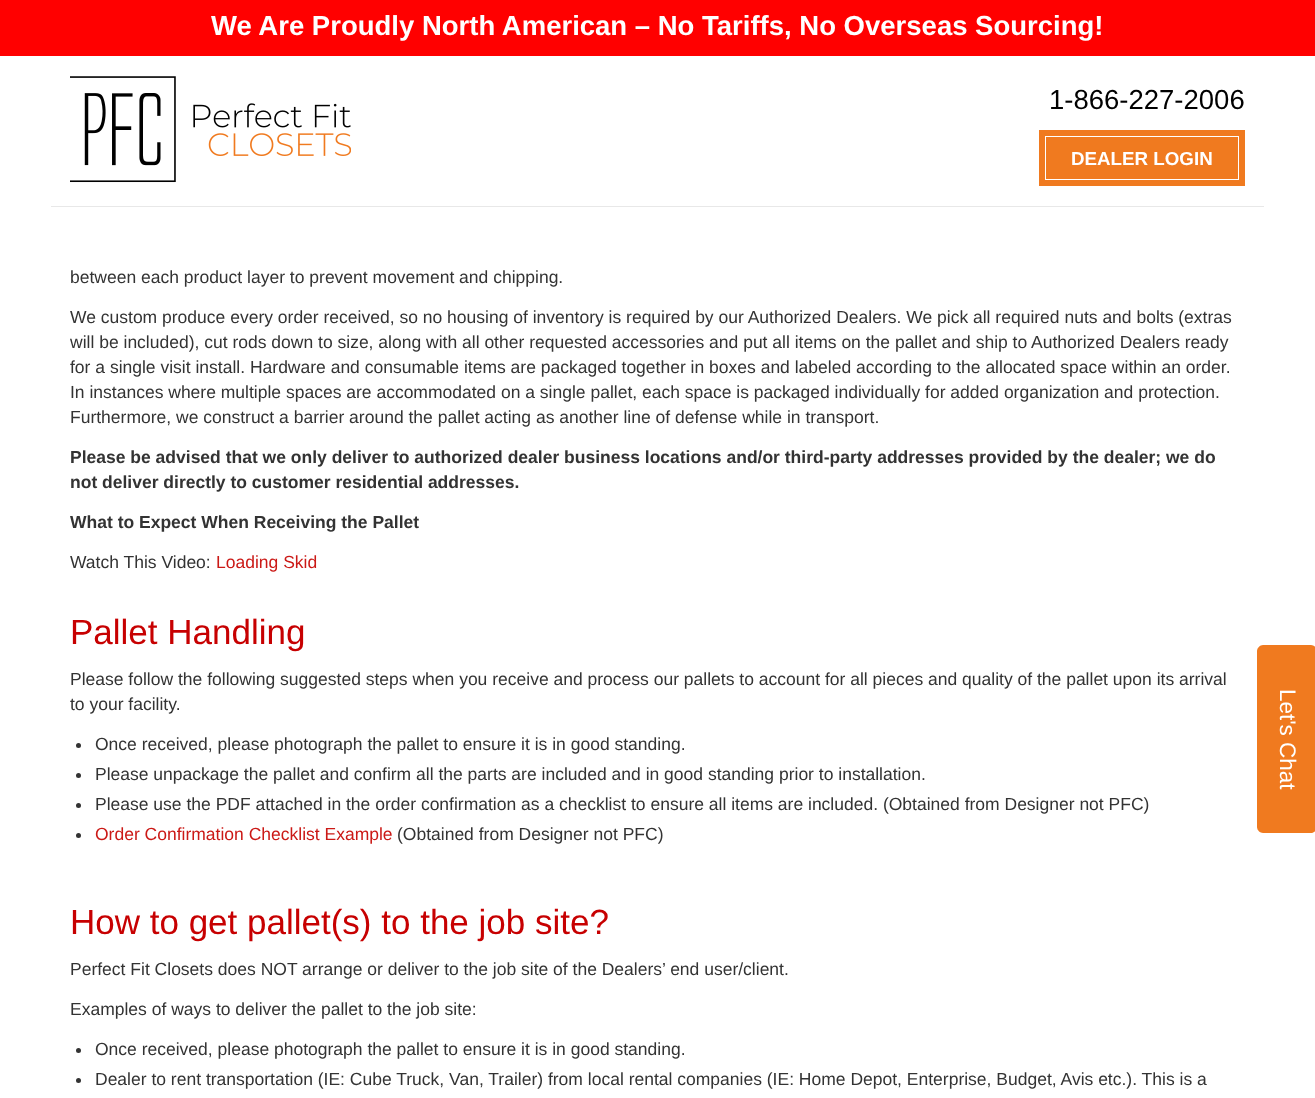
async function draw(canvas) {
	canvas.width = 1315;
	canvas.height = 1098;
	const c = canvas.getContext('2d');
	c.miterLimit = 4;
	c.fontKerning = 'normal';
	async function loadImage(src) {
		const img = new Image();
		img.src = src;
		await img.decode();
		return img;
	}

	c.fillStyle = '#fff';
	c.fillRect(0, 0, 1315, 1098);
	c.fillStyle = '#f00';
	c.fillRect(0, 0, 1315, 56);
	c.font = 'bold 27.5px Liberation Sans';
	c.fillStyle = '#fff';
	c.fillText('We Are Proudly North American – No Tariffs, No Overseas Sourcing!', 211, 35);
	c.drawImage(await loadImage('img1.png'), 70, 76, 281, 107);
	c.font = '27.5px Liberation Sans';
	c.fillStyle = '#000';
	c.fillText('1-866-227-2006', 1049, 109);
	c.fillStyle = '#f07a1f';
	c.fillRect(1039, 130, 206, 56);
	c.strokeStyle = '#fff';
	c.strokeRect(1045.5, 136.5, 193, 43);
	c.font = 'bold 18.75px Liberation Sans';
	c.fillStyle = '#fff';
	c.fillText('DEALER LOGIN', 1071, 165);
	c.fillStyle = '#e8e8e8';
	c.fillRect(51, 206, 1213, 1);
	c.font = '17.5px Liberation Sans';
	c.fillStyle = '#333';
	for (const [text, x, y] of [
		['between each product layer to prevent movement and chipping.', 70, 283],
		['We custom produce every order received, so no housing of inventory is required by our Authorized Dealers. We pick all required nuts and bolts (extras', 70, 323],
		['will be included), cut rods down to size, along with all other requested accessories and put all items on the pallet and ship to Authorized Dealers ready', 70, 348],
		['for a single visit install. Hardware and consumable items are packaged together in boxes and labeled according to the allocated space within an order.', 70, 373],
		['In instances where multiple spaces are accommodated on a single pallet, each space is packaged individually for added organization and protection.', 70, 398],
		['Furthermore, we construct a barrier around the pallet acting as another line of defense while in transport.', 70, 423],
	]) {
		c.fillText(text, x, y);
	}
	c.font = 'bold 17.5px Liberation Sans';
	for (const [text, x, y] of [
		['Please be advised that we only deliver to authorized dealer business locations and/or third-party addresses provided by the dealer; we do', 70, 463],
		['not deliver directly to customer residential addresses.', 70, 488],
		['What to Expect When Receiving the Pallet', 70, 528],
	]) {
		c.fillText(text, x, y);
	}
	c.font = '17.5px Liberation Sans';
	c.fillText('Watch This Video:', 70, 568);
	c.fillStyle = '#cb1916';
	c.fillText('Loading Skid', 216, 568);
	c.font = '35px Liberation Sans';
	c.fillStyle = '#c70001';
	c.fillText('Pallet Handling', 70, 644);
	c.font = '17.5px Liberation Sans';
	c.fillStyle = '#333';
	c.fillText('Please follow the following suggested steps when you receive and process our pallets to account for all pieces and quality of the pallet upon its arrival', 70, 685);
	c.fillText('to your facility.', 70, 710);
	c.beginPath();
	c.arc(78.5, 745.5, 2.5, 0, 2 * Math.PI);
	c.fill();
	c.fillText('Once received, please photograph the pallet to ensure it is in good standing.', 95, 750);
	c.beginPath();
	c.arc(78.5, 775.5, 2.5, 0, 2 * Math.PI);
	c.fill();
	c.fillText('Please unpackage the pallet and confirm all the parts are included and in good standing prior to installation.', 95, 780);
	c.beginPath();
	c.arc(78.5, 805.5, 2.5, 0, 2 * Math.PI);
	c.fill();
	c.fillText('Please use the PDF attached in the order confirmation as a checklist to ensure all items are included. (Obtained from Designer not PFC)', 95, 810);
	c.beginPath();
	c.arc(78.5, 835.5, 2.5, 0, 2 * Math.PI);
	c.fill();
	c.fillStyle = '#cb1916';
	c.fillText('Order Confirmation Checklist Example', 95, 840);
	c.fillStyle = '#333';
	c.fillText('(Obtained from Designer not PFC)', 397, 840);
	c.font = '35px Liberation Sans';
	c.fillStyle = '#c70001';
	c.fillText('How to get pallet(s) to the job site?', 70, 934);
	c.font = '17.5px Liberation Sans';
	c.fillStyle = '#333';
	c.fillText('Perfect Fit Closets does NOT arrange or deliver to the job site of the Dealers’ end user/client.', 70, 975);
	c.fillText('Examples of ways to deliver the pallet to the job site:', 70, 1015);
	c.beginPath();
	c.arc(78.5, 1050.5, 2.5, 0, 2 * Math.PI);
	c.fill();
	c.fillText('Once received, please photograph the pallet to ensure it is in good standing.', 95, 1055);
	c.beginPath();
	c.arc(78.5, 1080.5, 2.5, 0, 2 * Math.PI);
	c.fill();
	c.fillText('Dealer to rent transportation (IE: Cube Truck, Van, Trailer) from local rental companies (IE: Home Depot, Enterprise, Budget, Avis etc.). This is a', 95, 1085);
	c.fillStyle = '#f07a1f';
	c.beginPath();
	c.moveTo(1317, 651);
	c.lineTo(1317, 827);
	c.bezierCurveTo(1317, 830, 1314, 833, 1311, 833);
	c.lineTo(1263, 833);
	c.bezierCurveTo(1260, 833, 1257, 830, 1257, 827);
	c.lineTo(1257, 651);
	c.bezierCurveTo(1257, 648, 1260, 645, 1263, 645);
	c.lineTo(1311, 645);
	c.bezierCurveTo(1314, 645, 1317, 648, 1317, 651);
	c.closePath();
	c.fill();
	c.font = '22.5px Liberation Sans';
	c.fillStyle = '#fff';
	c.save();
	c.translate(1280, 689);
	c.rotate(90 * Math.PI / 180);
	c.fillText('Let\'s Chat', 0, 0);
	c.restore();
}

draw(document.querySelector('canvas'));
